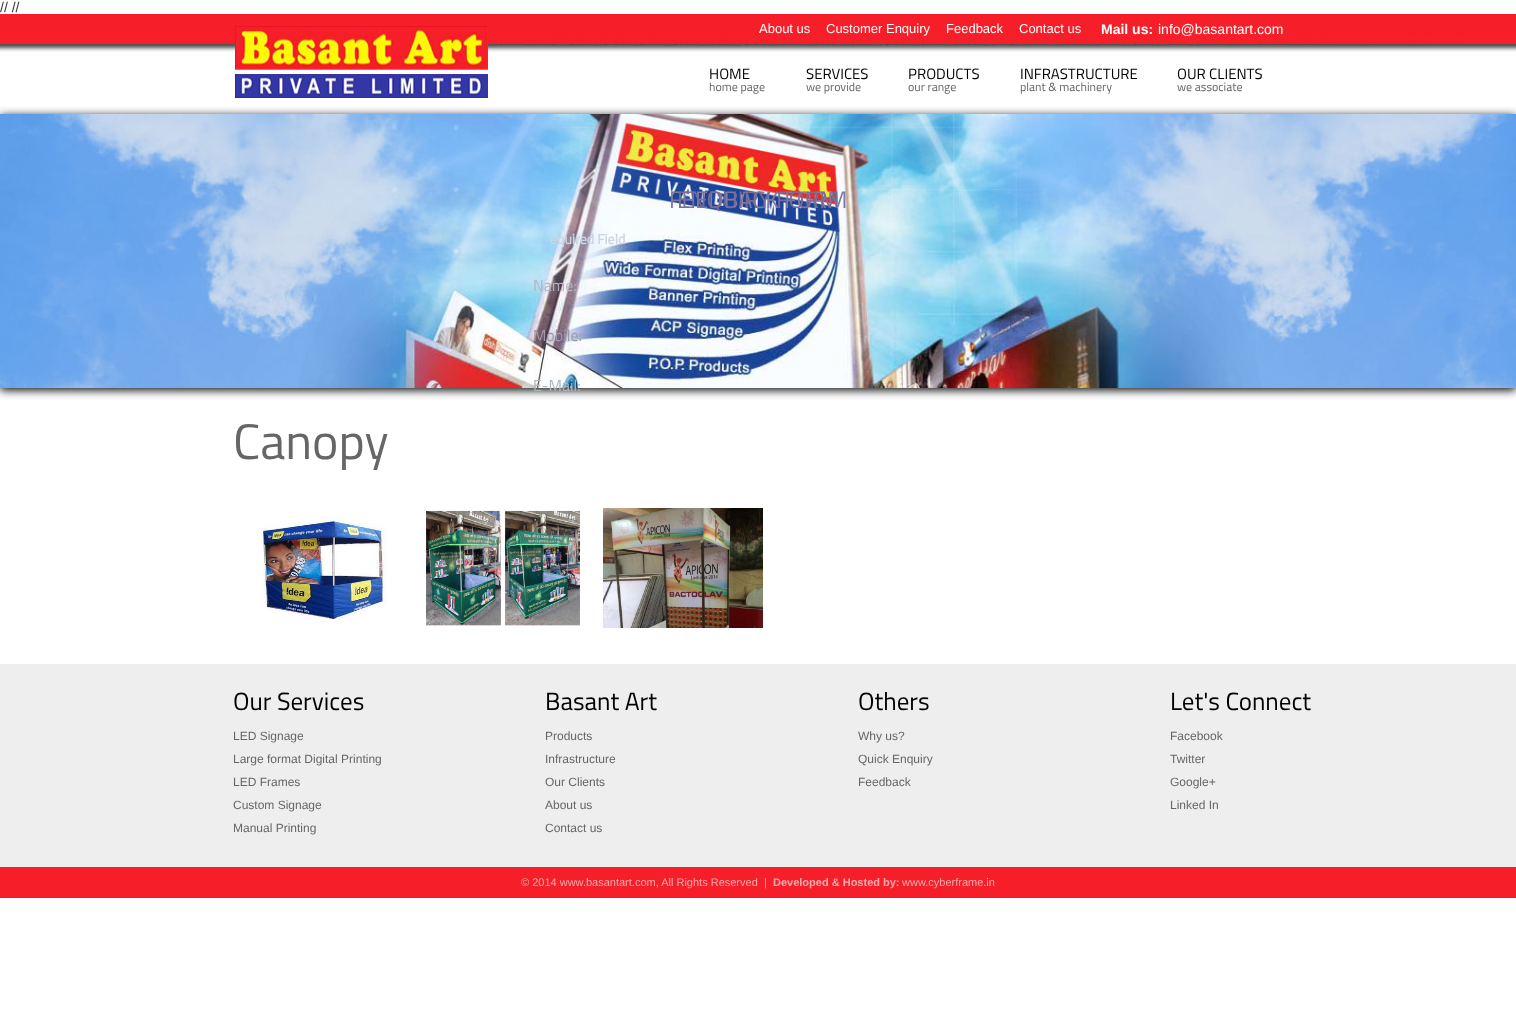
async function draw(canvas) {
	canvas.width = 1516;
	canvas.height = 1014;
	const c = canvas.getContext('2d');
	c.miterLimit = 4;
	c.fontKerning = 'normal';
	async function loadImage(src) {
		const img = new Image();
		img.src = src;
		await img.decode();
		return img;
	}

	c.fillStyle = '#fff';
	c.fillRect(0, 0, 1516, 1014);
	c.font = '14px Liberation Sans';
	c.fillStyle = '#333';
	c.fillText('// //', 0, 12);
	c.drawImage(await loadImage('img1.png'), 0, 14, 1516, 38);
	c.drawImage(await loadImage('img2.png'), 235, 26, 253, 72);
	c.font = '13px Liberation Sans';
	c.fillStyle = '#fff';
	for (const [text, x, y] of [
		['About us', 759, 33],
		['Customer Enquiry', 826, 33],
		['Feedback', 946, 33],
		['Contact us', 1019, 33],
	]) {
		c.fillText(text, x, y);
	}
	c.font = 'bold 14px Liberation Sans';
	c.fillText('Mail us:', 1101, 34);
	c.font = '14px Liberation Sans';
	c.fillText('info@basantart.com', 1158, 34);
	c.font = '15px Titillium Web';
	c.fillStyle = '#000';
	c.fillText('HOME', 709, 79);
	c.font = '12px Titillium Web';
	c.fillStyle = '#666';
	c.fillText('home page', 709, 91);
	c.font = '15px Titillium Web';
	c.fillStyle = '#000';
	c.fillText('SERVICES', 806, 79);
	c.font = '12px Titillium Web';
	c.fillStyle = '#666';
	c.fillText('we provide', 806, 91);
	c.font = '15px Titillium Web';
	c.fillStyle = '#000';
	c.fillText('PRODUCTS', 908, 79);
	c.font = '12px Titillium Web';
	c.fillStyle = '#666';
	c.fillText('our range', 908, 91);
	c.font = '15px Titillium Web';
	c.fillStyle = '#000';
	c.fillText('INFRASTRUCTURE', 1020, 79);
	c.font = '12px Titillium Web';
	c.fillStyle = '#666';
	c.fillText('plant & machinery', 1020, 91);
	c.font = '15px Titillium Web';
	c.fillStyle = '#000';
	c.fillText('OUR CLIENTS', 1177, 79);
	c.font = '12px Titillium Web';
	c.fillStyle = '#666';
	c.fillText('we associate', 1177, 91);
	c.fillStyle = '#000';
	c.filter = 'blur(5px)';
	c.beginPath();
	c.rect(0, 116, 1516, 274);
	c.fill();
	c.filter = 'none';
	c.drawImage(await loadImage('img3.png'), 0, 114, 1516, 274);
	c.font = '24px Titillium Web';
	c.fillStyle = '#7e7aa1';
	c.fillText('FEEDBACK FORM', 669, 208);
	c.font = 'bold 14px Titillium Web';
	c.fillStyle = '#c9d5e3';
	c.fillText('equired Field', 550, 244);
	c.font = '16px Titillium Web';
	c.fillStyle = '#b0b5c3';
	c.fillText('Name:', 533, 291);
	c.fillStyle = '#a098a9';
	c.fillText('Mobile:', 533, 341);
	c.fillStyle = '#a8b7c0';
	c.fillText('E-Mail:', 533, 391);
	c.font = '24px Titillium Web';
	c.fillStyle = '#776c97';
	c.fillText('ENQUIRY FORM', 677, 208);
	c.font = 'bold 14px Titillium Web';
	c.fillStyle = '#c9d5e3';
	c.fillText('i', 572, 244);
	c.font = '50px Titillium Web';
	c.fillStyle = '#666';
	c.fillText('Canopy', 233, 459);
	c.drawImage(await loadImage('img4.png'), 256, 516, 131, 107);
	c.drawImage(await loadImage('img5.png'), 426, 510, 154, 116);
	c.drawImage(await loadImage('img6.png'), 603, 508, 160, 120);
	c.fillStyle = '#eee';
	c.fillRect(0, 664, 1516, 203);
	c.font = '25px Titillium Web';
	c.fillStyle = '#000';
	c.fillText('Our Services', 233, 710);
	c.font = '12px Liberation Sans';
	c.fillStyle = '#666';
	for (const [text, x, y] of [
		['LED Signage', 233, 740],
		['Large format Digital Printing', 233, 763],
		['LED Frames', 233, 786],
		['Custom Signage', 233, 809],
		['Manual Printing', 233, 832],
	]) {
		c.fillText(text, x, y);
	}
	c.font = '25px Titillium Web';
	c.fillStyle = '#000';
	c.fillText('Basant Art', 545, 710);
	c.font = '12px Liberation Sans';
	c.fillStyle = '#666';
	for (const [text, x, y] of [
		['Products', 545, 740],
		['Infrastructure', 545, 763],
		['Our Clients', 545, 786],
		['About us', 545, 809],
		['Contact us', 545, 832],
	]) {
		c.fillText(text, x, y);
	}
	c.font = '25px Titillium Web';
	c.fillStyle = '#000';
	c.fillText('Others', 858, 710);
	c.font = '12px Liberation Sans';
	c.fillStyle = '#666';
	for (const [text, x, y] of [
		['Why us?', 858, 740],
		['Quick Enquiry', 858, 763],
		['Feedback', 858, 786],
	]) {
		c.fillText(text, x, y);
	}
	c.font = '25px Titillium Web';
	c.fillStyle = '#000';
	c.fillText('Let\'s Connect', 1170, 710);
	c.font = '12px Liberation Sans';
	c.fillStyle = '#666';
	for (const [text, x, y] of [
		['Facebook', 1170, 740],
		['Twitter', 1170, 763],
		['Google+', 1170, 786],
		['Linked In', 1170, 809],
	]) {
		c.fillText(text, x, y);
	}
	c.fillStyle = '#f61f29';
	c.fillRect(0, 867, 1516, 31);
	c.font = '11px Liberation Sans';
	c.fillStyle = '#f5a9ad';
	c.fillText('© 2014 www.basantart.com, All Rights Reserved  |', 521, 886);
	c.font = 'bold 11px Liberation Sans';
	c.fillText('Developed & Hosted by:', 773, 886);
	c.font = '11px Liberation Sans';
	c.fillText('www.cyberframe.in', 902, 886);
}

draw(document.querySelector('canvas'));
